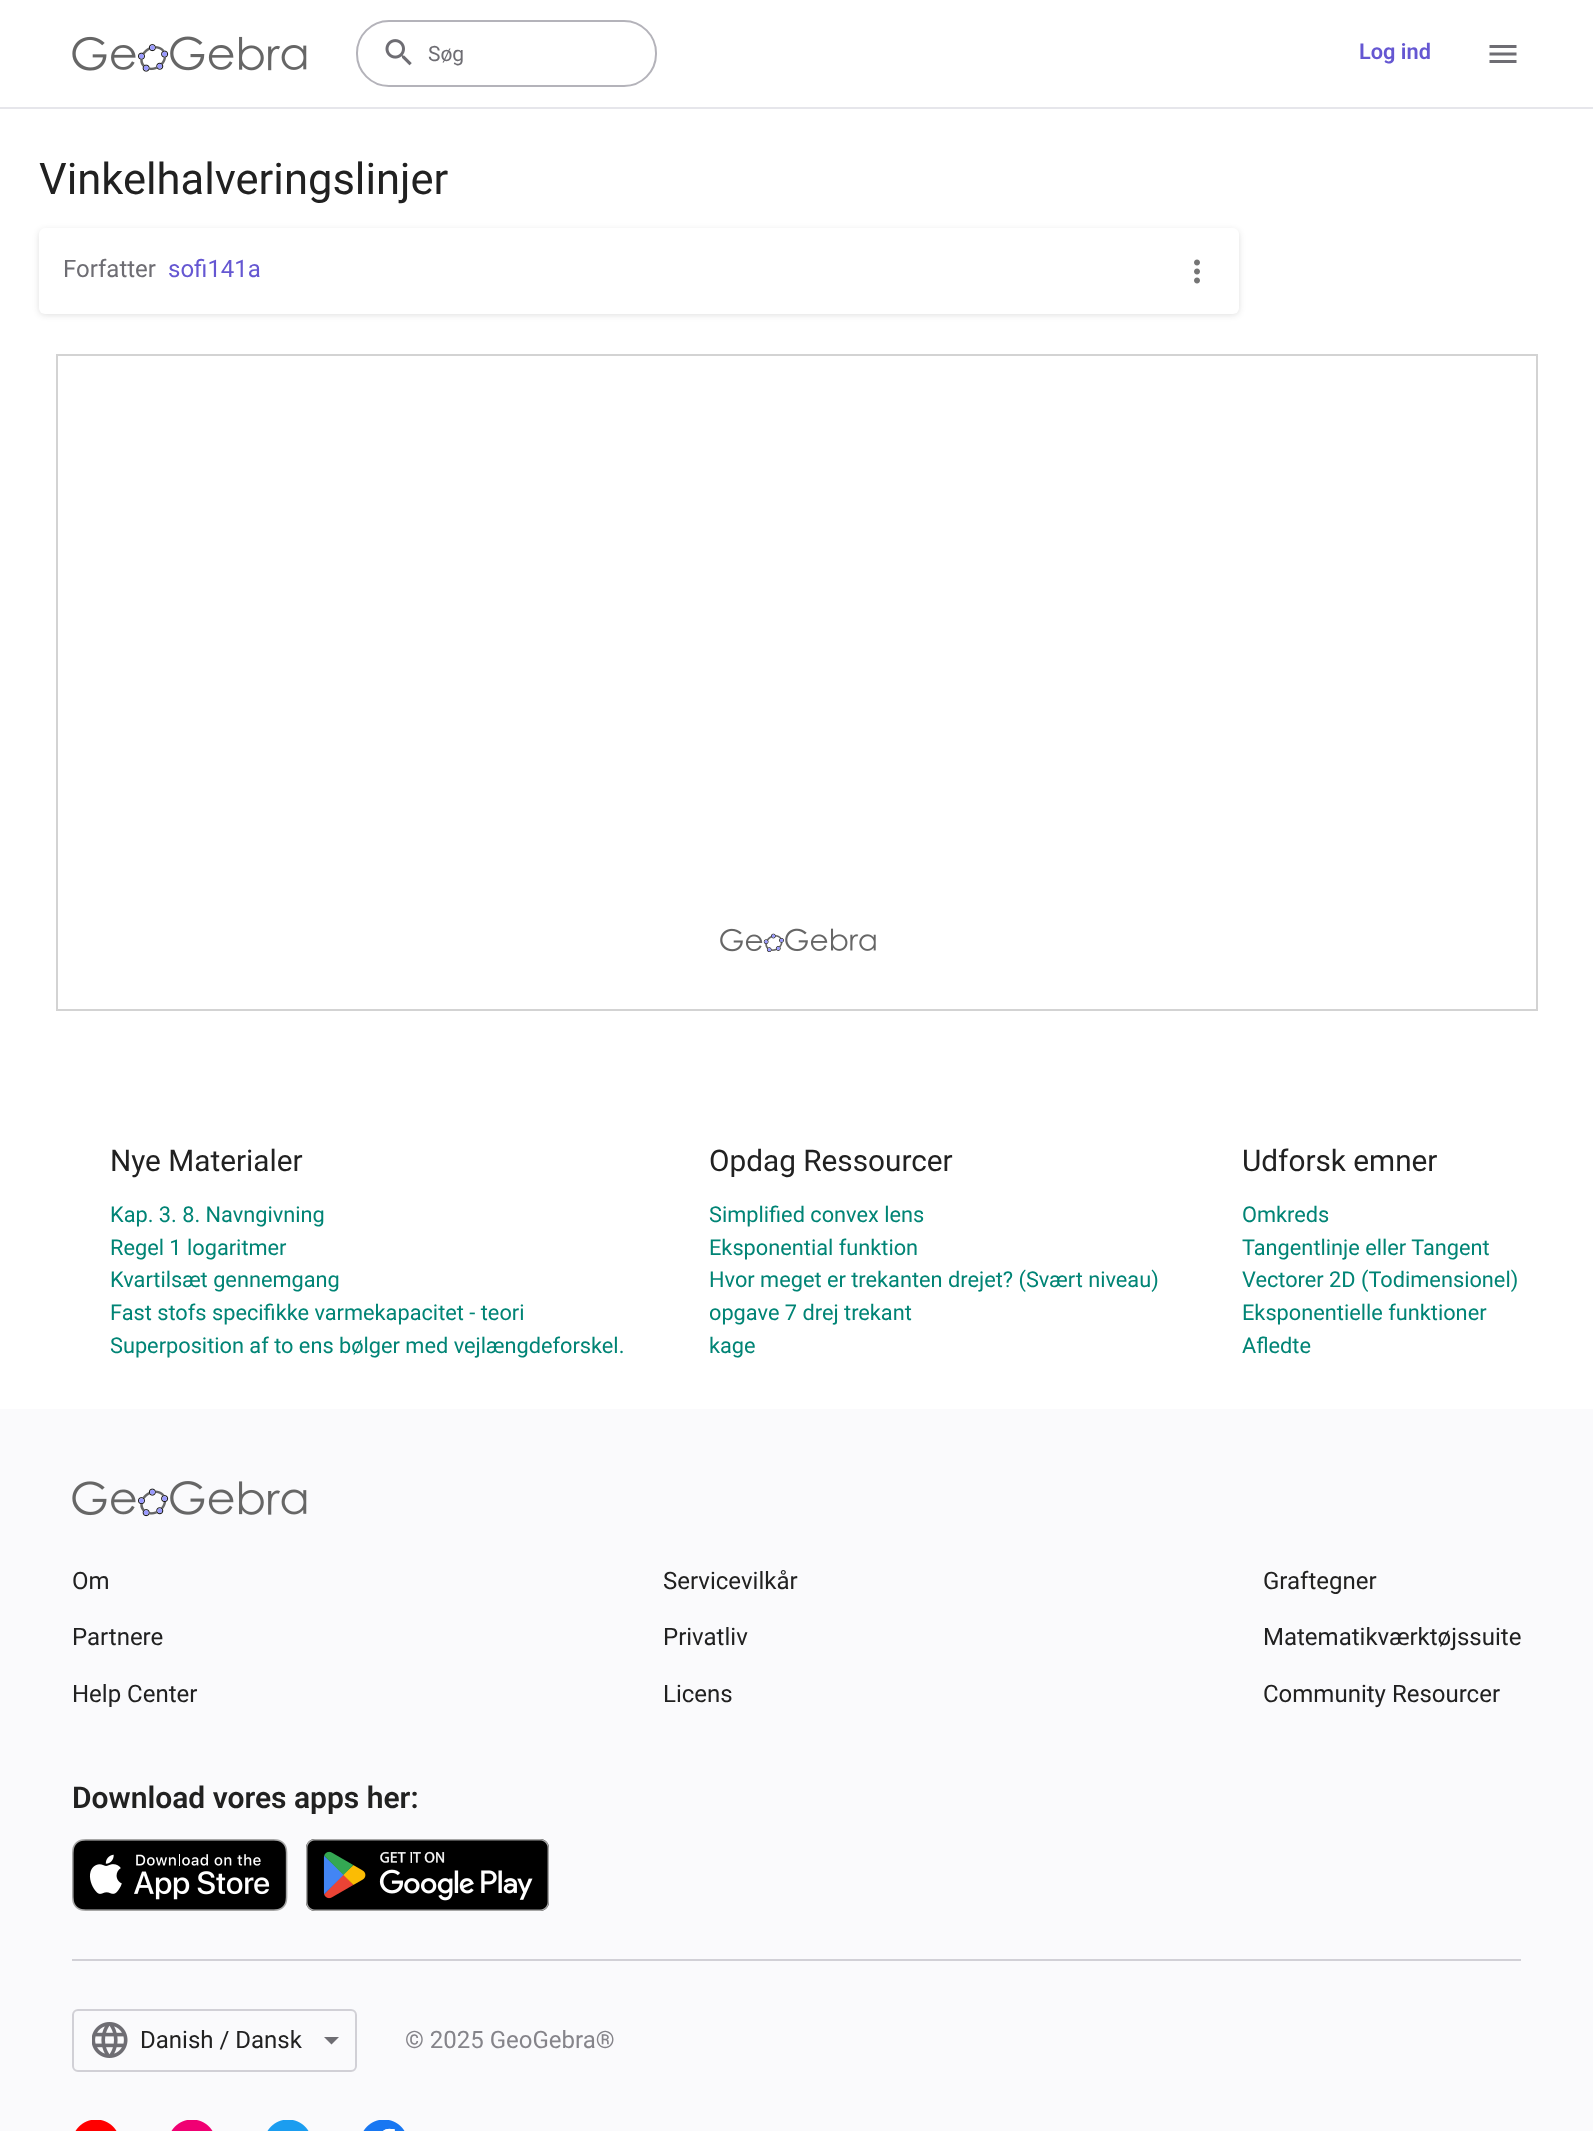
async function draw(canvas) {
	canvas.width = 1593;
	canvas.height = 2131;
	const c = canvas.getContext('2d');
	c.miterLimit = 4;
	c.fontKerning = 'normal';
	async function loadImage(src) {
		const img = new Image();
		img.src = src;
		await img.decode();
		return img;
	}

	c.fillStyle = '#fff';
	c.fillRect(0, 0, 1593, 2131);
	c.fillStyle = '#e6e6eb';
	c.fillRect(0, 107, 1593, 2);
	c.drawImage(await loadImage('img1.png'), 72, 36, 235, 36);
	c.beginPath();
	c.roundRect(357, 21, 299, 65, 32);
	c.strokeStyle = '#b4b3ba';
	c.lineWidth = 2;
	c.stroke();
	c.drawImage(await loadImage('img2.png'), 385, 39, 27, 27);
	c.font = '21px Roboto';
	c.fillStyle = '#6e6d73';
	c.fillText('Søg', 428, 61);
	c.font = '600 21.75px Roboto';
	c.fillStyle = '#6557d2';
	c.fillText('Log ind', 1359, 59);
	c.drawImage(await loadImage('img3.png'), 1489, 45, 28, 18);
	c.font = '43.5px Roboto';
	c.fillStyle = '#212121';
	c.fillText('Vinkelhalveringslinjer', 39, 194);
	c.fillStyle = '#1c1c1f24';
	c.filter = 'blur(3px)';
	c.beginPath();
	c.roundRect(39, 230, 1200, 85, 6);
	c.fill();
	c.filter = 'none';
	c.fillStyle = '#fff';
	c.beginPath();
	c.roundRect(39, 228, 1200, 86, 6);
	c.fill();
	c.font = '24px Roboto';
	c.fillStyle = '#6e6d73';
	c.fillText('Forfatter', 63, 277);
	c.fillStyle = '#6557d2';
	c.fillText('sofi141a', 168, 277);
	c.drawImage(await loadImage('img4.png'), 1194, 259, 6, 25);
	c.drawImage(await loadImage('img5.png'), 720, 928, 156, 24);
	c.strokeStyle = '#d3d3d3';
	c.strokeRect(57, 355, 1480, 655);
	c.font = '29.75px Roboto';
	c.fillStyle = '#212121';
	c.fillText('Nye Materialer', 110, 1171);
	c.font = '21.75px Roboto';
	c.fillStyle = '#008475';
	for (const [text, x, y] of [
		['Kap. 3. 8. Navngivning', 110, 1222],
		['Regel 1 logaritmer', 110, 1255],
		['Kvartilsæt gennemgang', 110, 1287],
		['Fast stofs specifikke varmekapacitet - teori', 110, 1320],
		['Superposition af to ens bølger med vejlængdeforskel.', 110, 1353],
	]) {
		c.fillText(text, x, y);
	}
	c.font = '29.75px Roboto';
	c.fillStyle = '#212121';
	c.fillText('Opdag Ressourcer', 709, 1171);
	c.font = '21.75px Roboto';
	c.fillStyle = '#008475';
	for (const [text, x, y] of [
		['Simplified convex lens', 709, 1222],
		['Eksponential funktion', 709, 1255],
		['Hvor meget er trekanten drejet? (Svært niveau)', 709, 1287],
		['opgave 7 drej trekant', 709, 1320],
		['kage', 709, 1353],
	]) {
		c.fillText(text, x, y);
	}
	c.font = '29.75px Roboto';
	c.fillStyle = '#212121';
	c.fillText('Udforsk emner', 1242, 1171);
	c.font = '21.75px Roboto';
	c.fillStyle = '#008475';
	for (const [text, x, y] of [
		['Omkreds', 1242, 1222],
		['Tangentlinje eller Tangent', 1242, 1255],
		['Vectorer 2D (Todimensionel)', 1242, 1287],
		['Eksponentielle funktioner', 1242, 1320],
		['Afledte', 1242, 1353],
	]) {
		c.fillText(text, x, y);
	}
	c.fillStyle = '#fafafc';
	c.fillRect(0, 1409, 1593, 722);
	c.drawImage(await loadImage('img6.png'), 72, 1481, 235, 36);
	c.font = '24px Roboto';
	c.fillStyle = '#212121';
	for (const [text, x, y] of [
		['Om', 72, 1589],
		['Partnere', 72, 1645],
		['Help Center', 72, 1702],
		['Servicevilkår', 663, 1589],
		['Privatliv', 663, 1645],
		['Licens', 663, 1702],
		['Graftegner', 1263, 1589],
		['Matematikværktøjssuite', 1263, 1645],
		['Community Resourcer', 1263, 1702],
	]) {
		c.fillText(text, x, y);
	}
	c.font = '600 30px Roboto';
	c.fillText('Download vores apps her:', 72, 1808);
	c.drawImage(await loadImage('img7.png'), 72, 1839, 216, 72);
	c.drawImage(await loadImage('img8.png'), 306, 1839, 243, 72);
	c.fillStyle = '#d1d0d6';
	c.fillRect(72, 1959, 1449, 2);
	c.beginPath();
	c.roundRect(73, 2010, 283, 61, 5);
	c.strokeStyle = '#d1d0d6';
	c.stroke();
	c.drawImage(await loadImage('img9.png'), 92, 2022, 36, 36);
	c.font = '24px Roboto';
	c.fillStyle = '#212121';
	c.fillText('Danish / Dansk', 140, 2048);
	c.fillStyle = '#6e6d73';
	c.beginPath();
	c.moveTo(324, 2037);
	c.lineTo(331.5, 2044.5);
	c.lineTo(339, 2037);
	c.closePath();
	c.fill();
	c.fillStyle = '#85848a';
	c.fillText('© 2025 GeoGebra®', 405, 2048);
	c.drawImage(await loadImage('img10.png'), 75, 2120, 42, 11);
	c.drawImage(await loadImage('img11.png'), 171, 2120, 42, 11);
	c.drawImage(await loadImage('img12.png'), 267, 2120, 42, 11);
	c.drawImage(await loadImage('img13.png'), 363, 2120, 42, 11);
}

draw(document.querySelector('canvas'));
